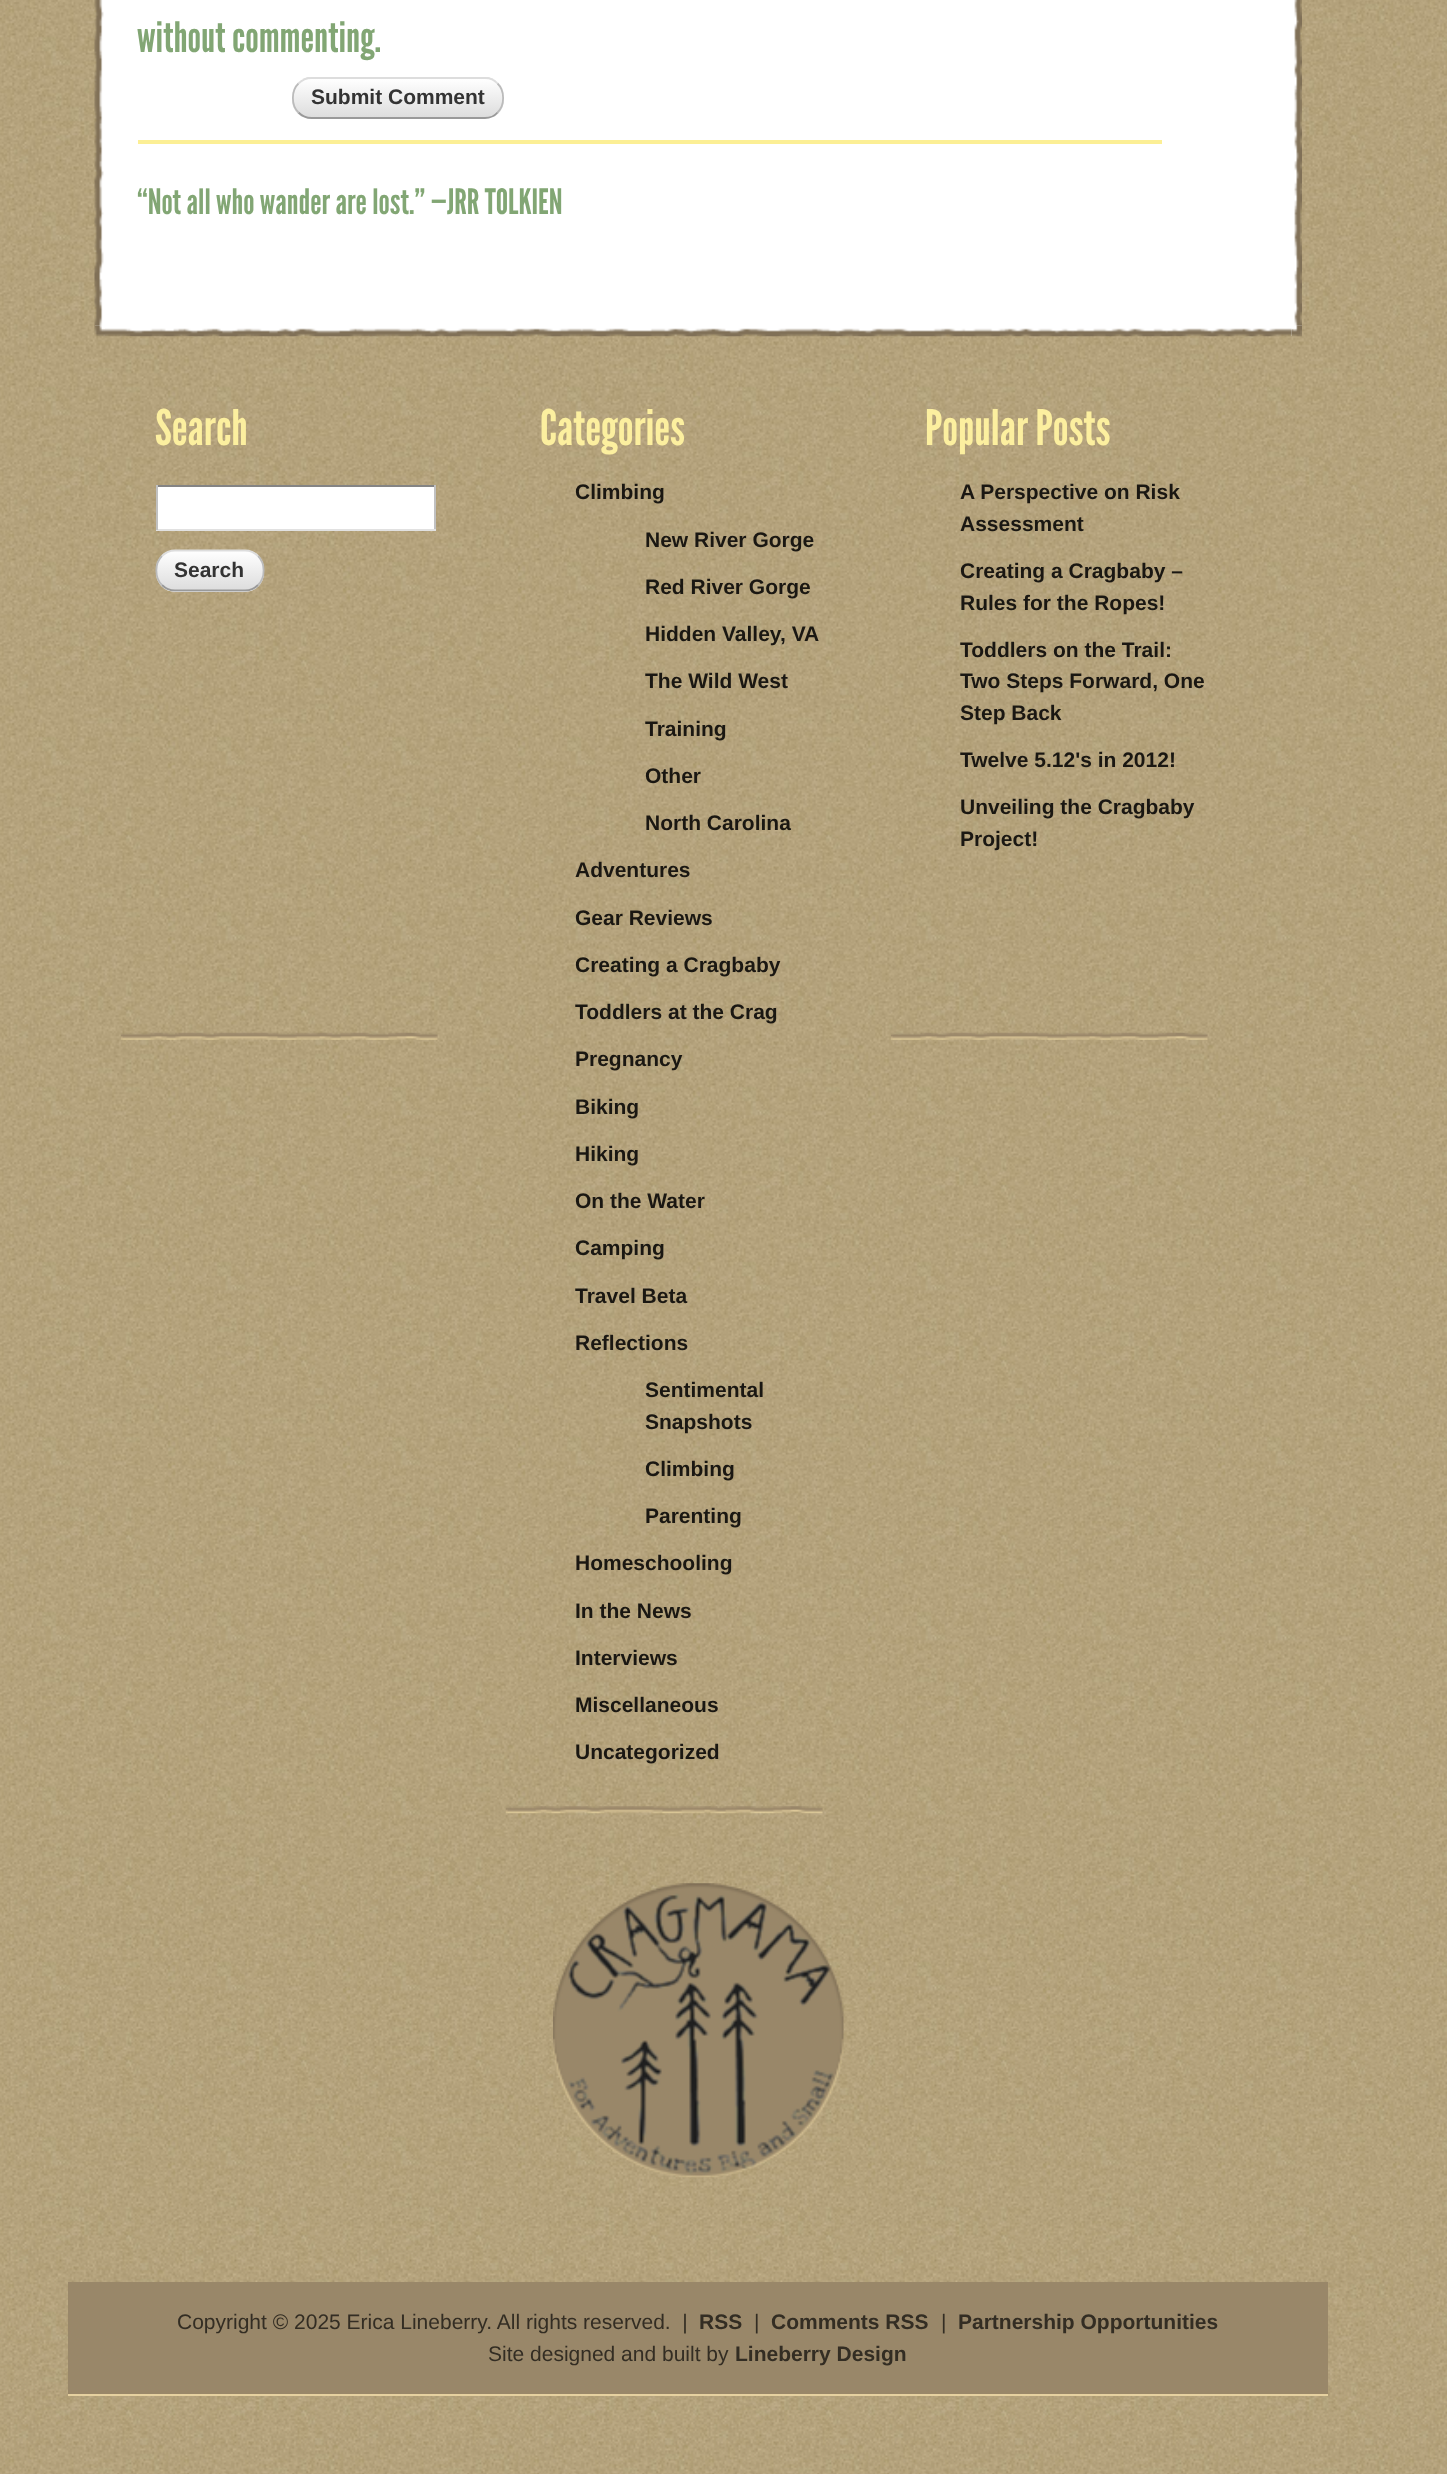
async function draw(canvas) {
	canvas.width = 1447;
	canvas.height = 2474;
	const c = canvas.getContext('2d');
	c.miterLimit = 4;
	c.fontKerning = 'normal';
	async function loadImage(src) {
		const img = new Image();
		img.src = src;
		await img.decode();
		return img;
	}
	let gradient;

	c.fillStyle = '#fff';
	c.fillRect(0, 0, 1447, 2474);
	c.drawImage(await loadImage('img1.png'), 0, 0, 1447, 2474);
	c.fillRect(95, 0, 1207, 336);
	c.drawImage(await loadImage('img2.png'), 94, 0, 1208, 337);
	c.font = '42px League Gothic';
	c.fillStyle = '#82a674';
	c.fillText('without commenting.', 137, 52);
	c.save();
	c.beginPath();
	c.roundRect(292, 77, 212, 42, 19);
	c.clip();
	gradient = c.createLinearGradient(294, 40, 294, 79);
	gradient.addColorStop(0, '#fff');
	gradient.addColorStop(1, '#ddd');
	c.fillStyle = gradient;
	c.fillRect(302, 77, 192, 2);
	gradient = c.createLinearGradient(294, 79, 294, 117);
	gradient.addColorStop(0, '#fff');
	gradient.addColorStop(1, '#ddd');
	c.fillStyle = gradient;
	c.fillRect(292, 79, 212, 38);
	c.restore();
	c.beginPath();
	c.moveTo(298.5, 83.5);
	c.bezierCurveTo(302, 80, 306.5, 78, 311.5, 78);
	c.lineTo(485, 78);
	c.bezierCurveTo(489.5, 78, 494.5, 80, 497.5, 83.5);
	c.strokeStyle = '#ddd';
	c.lineWidth = 1.8;
	c.stroke();
	c.beginPath();
	c.moveTo(497.5, 83.5);
	c.bezierCurveTo(505, 90.5, 505, 105.5, 497.5, 112.5);
	c.strokeStyle = '#bbb';
	c.stroke();
	c.beginPath();
	c.moveTo(497.5, 112.5);
	c.bezierCurveTo(494.5, 116, 489.5, 118, 485, 118);
	c.lineTo(311.5, 118);
	c.bezierCurveTo(306.5, 118, 302, 116, 298.5, 112.5);
	c.strokeStyle = '#999';
	c.stroke();
	c.beginPath();
	c.moveTo(298.5, 112.5);
	c.bezierCurveTo(291, 105.5, 291, 90.5, 298.5, 83.5);
	c.strokeStyle = '#bbb';
	c.stroke();
	c.font = 'bold 21px Liberation Sans';
	c.fillStyle = '#333';
	c.fillText('Submit Comment', 311, 104);
	c.fillStyle = '#fcef95';
	c.fillRect(138, 140, 1024, 4);
	c.font = '34.9px League Gothic';
	c.fillStyle = '#82a674';
	c.fillText('“Not all who wander are lost.” —JRR TOLKIEN', 137, 214);
	c.drawImage(await loadImage('img3.png'), 120, 1032, 318, 8);
	c.font = '49px League Gothic';
	c.fillStyle = '#fcef9f';
	c.fillText('Search', 155, 445);
	for (const [x, y, w, h, color] of [
		[158, 487, 276, 42, '#fff'],
		[156, 485, 280, 2, '#848484'],
		[434, 485, 2, 45, '#c1c1c1'],
		[156, 529, 280, 2, '#e1e1e1'],
		[156, 485, 2, 45, '#c1c1c1'],
	]) {
		c.fillStyle = color;
		c.fillRect(x, y, w, h);
	}
	c.save();
	c.beginPath();
	c.roundRect(156, 550, 108, 42, 19);
	c.clip();
	gradient = c.createLinearGradient(158, 551, 158, 590);
	gradient.addColorStop(0, '#fff');
	gradient.addColorStop(1, '#ddd');
	c.fillStyle = gradient;
	c.fillRect(156, 551, 108, 39);
	gradient = c.createLinearGradient(158, 590, 158, 628);
	gradient.addColorStop(0, '#fff');
	gradient.addColorStop(1, '#ddd');
	c.fillStyle = gradient;
	c.fillRect(166, 590, 88, 2);
	c.restore();
	c.beginPath();
	c.moveTo(162, 556);
	c.bezierCurveTo(165.5, 552.5, 170, 550.5, 175, 550.5);
	c.lineTo(245, 550.5);
	c.bezierCurveTo(250, 550.5, 254.5, 552.5, 258, 556);
	c.strokeStyle = '#ddd';
	c.stroke();
	c.beginPath();
	c.moveTo(258, 556);
	c.bezierCurveTo(265.5, 563, 265.5, 578, 258, 585);
	c.strokeStyle = '#bbb';
	c.stroke();
	c.beginPath();
	c.moveTo(258, 585);
	c.bezierCurveTo(254.5, 588.5, 250, 590.5, 245, 590.5);
	c.lineTo(175, 590.5);
	c.bezierCurveTo(170, 590.5, 165.5, 588.5, 162, 585);
	c.strokeStyle = '#999';
	c.stroke();
	c.beginPath();
	c.moveTo(162, 585);
	c.bezierCurveTo(154.5, 578, 154.5, 563, 162, 556);
	c.strokeStyle = '#bbb';
	c.stroke();
	c.font = 'bold 21px Liberation Sans';
	c.fillStyle = '#333';
	c.fillText('Search', 174, 577);
	c.drawImage(await loadImage('img4.png'), 505, 1806, 318, 8);
	c.font = '49px League Gothic';
	c.fillStyle = '#fcef9f';
	c.fillText('Categories', 540, 445);
	c.font = 'bold 21px Liberation Sans';
	c.fillStyle = '#1a1712';
	for (const [text, x, y] of [
		['Climbing', 575, 499],
		['New River Gorge', 645, 547],
		['Red River Gorge', 645, 594],
		['Hidden Valley, VA', 645, 641],
		['The Wild West', 645, 688],
		['Training', 645, 736],
		['Other', 645, 783],
		['North Carolina', 645, 830],
		['Adventures', 575, 877],
		['Gear Reviews', 575, 925],
		['Creating a Cragbaby', 575, 972],
		['Toddlers at the Crag', 575, 1019],
		['Pregnancy', 575, 1066],
		['Biking', 575, 1114],
		['Hiking', 575, 1161],
		['On the Water', 575, 1208],
		['Camping', 575, 1255],
		['Travel Beta', 575, 1303],
		['Reflections', 575, 1350],
		['Sentimental', 645, 1397],
		['Snapshots', 645, 1429],
		['Climbing', 645, 1476],
		['Parenting', 645, 1523],
		['Homeschooling', 575, 1570],
		['In the News', 575, 1618],
		['Interviews', 575, 1665],
		['Miscellaneous', 575, 1712],
		['Uncategorized', 575, 1759],
	]) {
		c.fillText(text, x, y);
	}
	c.drawImage(await loadImage('img5.png'), 890, 1032, 318, 8);
	c.font = '49px League Gothic';
	c.fillStyle = '#fcef9f';
	c.fillText('Popular Posts', 925, 445);
	c.font = 'bold 21px Liberation Sans';
	c.fillStyle = '#1a1712';
	for (const [text, x, y] of [
		['A Perspective on Risk', 960, 499],
		['Assessment', 960, 531],
		['Creating a Cragbaby –', 960, 578],
		['Rules for the Ropes!', 960, 610],
		['Toddlers on the Trail:', 960, 657],
		['Two Steps Forward, One', 960, 688],
		['Step Back', 960, 720],
		['Twelve 5.12\'s in 2012!', 960, 767],
		['Unveiling the Cragbaby', 960, 814],
		['Project!', 960, 846],
	]) {
		c.fillText(text, x, y);
	}
	c.drawImage(await loadImage('img6.png'), 553, 1883, 291, 295);
	c.fillStyle = '#998769';
	c.fillRect(68, 2282, 1260, 112);
	c.fillStyle = '#e6d1a0';
	c.fillRect(68, 2394, 1260, 2);
	c.font = '21px Liberation Sans';
	c.fillStyle = '#332d23';
	c.fillText('Copyright © 2025 Erica Lineberry. All rights reserved.  |', 177, 2329);
	c.font = 'bold 21px Liberation Sans';
	c.fillText('RSS', 699, 2329);
	c.font = '21px Liberation Sans';
	c.fillText('|', 754, 2329);
	c.font = 'bold 21px Liberation Sans';
	c.fillText('Comments RSS', 771, 2329);
	c.font = '21px Liberation Sans';
	c.fillText('|', 941, 2329);
	c.font = 'bold 21px Liberation Sans';
	c.fillText('Partnership Opportunities', 958, 2329);
	c.font = '21px Liberation Sans';
	c.fillText('Site designed and built by', 488, 2361);
	c.font = 'bold 21px Liberation Sans';
	c.fillText('Lineberry Design', 735, 2361);
}

draw(document.querySelector('canvas'));
